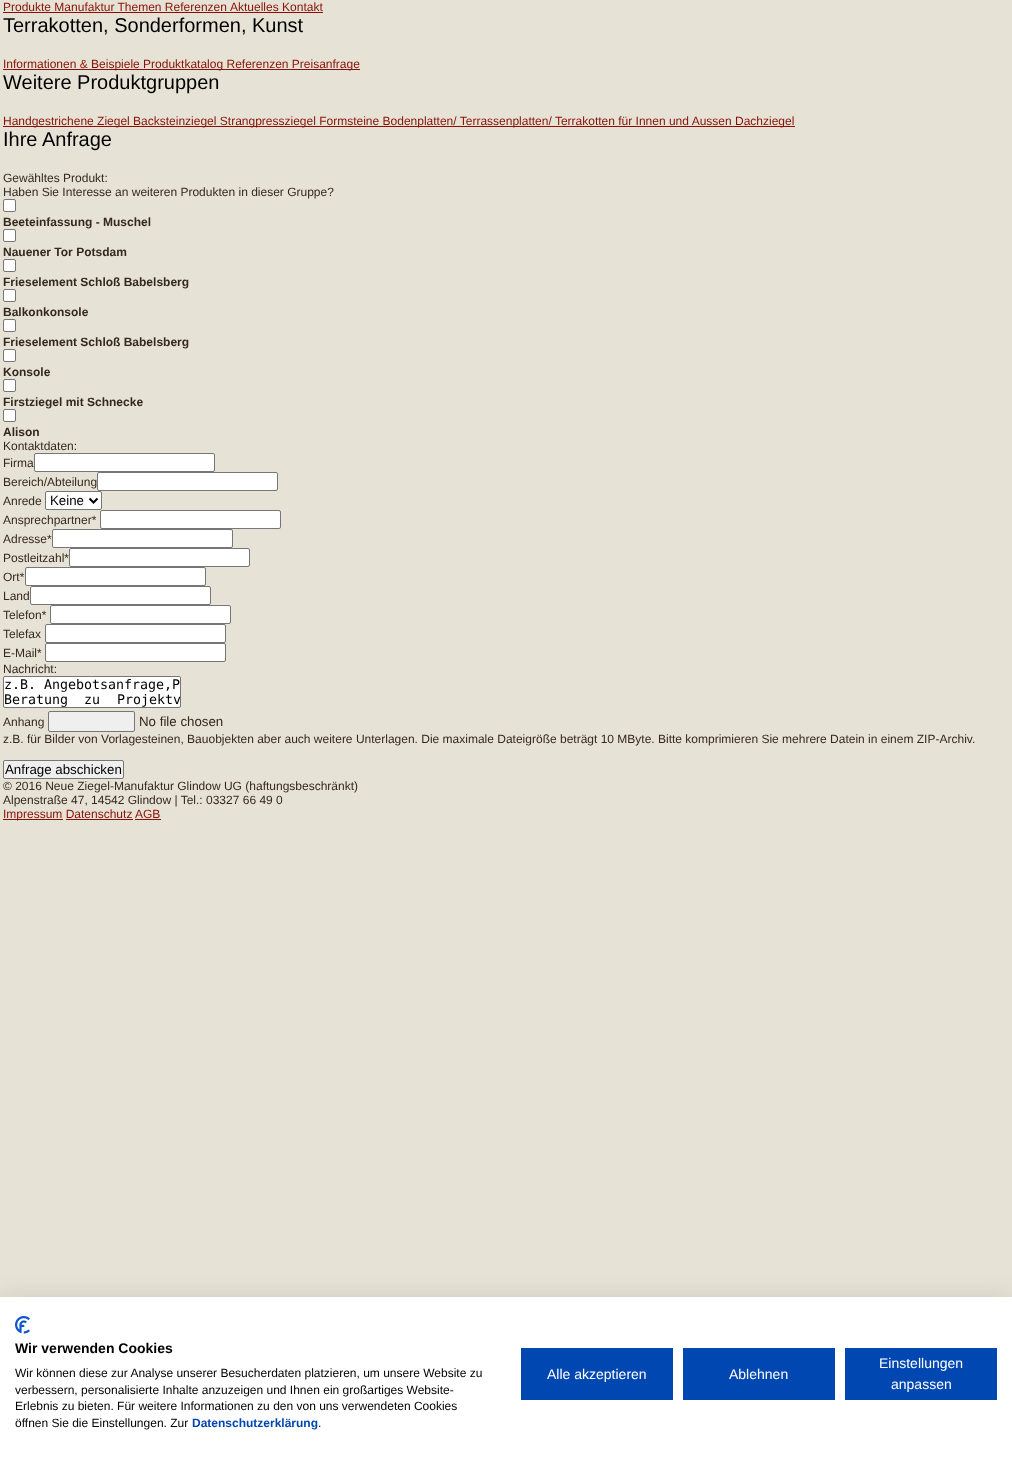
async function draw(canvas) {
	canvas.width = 1012;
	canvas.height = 1459;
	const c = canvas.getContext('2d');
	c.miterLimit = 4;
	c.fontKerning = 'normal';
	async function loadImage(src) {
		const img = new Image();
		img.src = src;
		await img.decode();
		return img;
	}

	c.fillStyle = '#e7e2d6';
	c.fillRect(0, 0, 1012, 1459);
	c.font = '12px Liberation Sans';
	c.fillStyle = '#881107';
	c.fillText('Produkte Manufaktur Themen Referenzen', 3, 11);
	c.fillRect(3, 12, 320, 1);
	c.fillText('Aktuelles Kontakt', 230, 11);
	c.font = '20px Liberation Sans';
	c.fillStyle = '#000';
	c.fillText('Terrakotten, Sonderformen, Kunst', 3, 32);
	c.fillStyle = '#881107';
	c.fillRect(3, 69, 357, 1);
	c.font = '12px Liberation Sans';
	c.fillText('Informationen & Beispiele Produktkatalog Referenzen Preisanfrage', 3, 68);
	c.font = '20px Liberation Sans';
	c.fillStyle = '#000';
	c.fillText('Weitere Produktgruppen', 3, 89);
	c.fillStyle = '#881107';
	c.fillRect(3, 126, 792, 1);
	c.font = '12px Liberation Sans';
	c.fillText('Handgestrichene Ziegel Backsteinziegel Strangpressziegel Formsteine Bodenplatten/ Terrassenplatten/ Terrakotten für Innen und Aussen Dachziegel', 3, 125);
	c.font = '20px Liberation Sans';
	c.fillStyle = '#000';
	c.fillText('Ihre Anfrage', 3, 146);
	c.font = '12px Liberation Sans';
	c.fillStyle = '#342821';
	c.fillText('Gewähltes Produkt:', 3, 182);
	c.fillText('Haben Sie Interesse an weiteren Produkten in dieser Gruppe?', 3, 196);
	c.fillStyle = '#fff';
	c.beginPath();
	c.roundRect(3.5, 199.5, 12, 12, 1.5);
	c.fill();
	c.strokeStyle = '#767676';
	c.stroke();
	c.font = 'bold 12px Liberation Sans';
	c.fillStyle = '#342821';
	c.fillText('Beeteinfassung - Muschel', 3, 226);
	c.fillStyle = '#fff';
	c.beginPath();
	c.roundRect(3.5, 229.5, 12, 12, 1.5);
	c.fill();
	c.stroke();
	c.fillStyle = '#342821';
	c.fillText('Nauener Tor Potsdam', 3, 256);
	c.fillStyle = '#fff';
	c.beginPath();
	c.roundRect(3.5, 259.5, 12, 12, 1.5);
	c.fill();
	c.stroke();
	c.fillStyle = '#342821';
	c.fillText('Frieselement Schloß Babelsberg', 3, 286);
	c.fillStyle = '#fff';
	c.beginPath();
	c.roundRect(3.5, 289.5, 12, 12, 1.5);
	c.fill();
	c.stroke();
	c.fillStyle = '#342821';
	c.fillText('Balkonkonsole', 3, 316);
	c.fillStyle = '#fff';
	c.beginPath();
	c.roundRect(3.5, 319.5, 12, 12, 1.5);
	c.fill();
	c.stroke();
	c.fillStyle = '#342821';
	c.fillText('Frieselement Schloß Babelsberg', 3, 346);
	c.fillStyle = '#fff';
	c.beginPath();
	c.roundRect(3.5, 349.5, 12, 12, 1.5);
	c.fill();
	c.stroke();
	c.fillStyle = '#342821';
	c.fillText('Konsole', 3, 376);
	c.fillStyle = '#fff';
	c.beginPath();
	c.roundRect(3.5, 379.5, 12, 12, 1.5);
	c.fill();
	c.stroke();
	c.fillStyle = '#342821';
	c.fillText('Firstziegel mit Schnecke', 3, 406);
	c.fillStyle = '#fff';
	c.beginPath();
	c.roundRect(3.5, 409.5, 12, 12, 1.5);
	c.fill();
	c.stroke();
	c.fillStyle = '#342821';
	c.fillText('Alison', 3, 436);
	c.font = '12px Liberation Sans';
	c.fillText('Kontaktdaten:', 3, 450);
	c.fillText('Firma', 3, 467);
	c.fillStyle = '#fff';
	c.beginPath();
	c.roundRect(34.5, 453.5, 180, 18, 1.5);
	c.fill();
	c.stroke();
	c.fillStyle = '#342821';
	c.fillText('Bereich/Abteilung', 3, 486);
	c.fillStyle = '#fff';
	c.beginPath();
	c.roundRect(97.5, 472.5, 180, 18, 1.5);
	c.fill();
	c.stroke();
	c.fillStyle = '#342821';
	c.fillText('Anrede', 3, 505);
	c.fillStyle = '#fff';
	c.beginPath();
	c.roundRect(45.5, 491.5, 56, 18, 1.5);
	c.fill();
	c.stroke();
	c.beginPath();
	c.moveTo(89.5, 498.5);
	c.lineTo(93.5, 502.5);
	c.lineTo(97.5, 498.5);
	c.strokeStyle = '#000';
	c.lineWidth = 2;
	c.stroke();
	c.font = '13.3px Liberation Sans';
	c.fillStyle = '#000';
	c.fillText('Keine', 50, 505);
	c.font = '12px Liberation Sans';
	c.fillStyle = '#342821';
	c.fillText('Ansprechpartner*', 3, 524);
	c.fillStyle = '#fff';
	c.beginPath();
	c.roundRect(100.5, 510.5, 180, 18, 1.5);
	c.fill();
	c.strokeStyle = '#767676';
	c.lineWidth = 1;
	c.stroke();
	c.fillStyle = '#342821';
	c.fillText('Adresse*', 3, 543);
	c.fillStyle = '#fff';
	c.beginPath();
	c.roundRect(52.5, 529.5, 180, 18, 1.5);
	c.fill();
	c.stroke();
	c.fillStyle = '#342821';
	c.fillText('Postleitzahl*', 3, 562);
	c.fillStyle = '#fff';
	c.beginPath();
	c.roundRect(69.5, 548.5, 180, 18, 1.5);
	c.fill();
	c.stroke();
	c.fillStyle = '#342821';
	c.fillText('Ort*', 3, 581);
	c.fillStyle = '#fff';
	c.beginPath();
	c.roundRect(25.5, 567.5, 180, 18, 1.5);
	c.fill();
	c.stroke();
	c.fillStyle = '#342821';
	c.fillText('Land', 3, 600);
	c.fillStyle = '#fff';
	c.beginPath();
	c.roundRect(30.5, 586.5, 180, 18, 1.5);
	c.fill();
	c.stroke();
	c.fillStyle = '#342821';
	c.fillText('Telefon*', 3, 619);
	c.fillStyle = '#fff';
	c.beginPath();
	c.roundRect(50.5, 605.5, 180, 18, 1.5);
	c.fill();
	c.stroke();
	c.fillStyle = '#342821';
	c.fillText('Telefax', 3, 638);
	c.fillStyle = '#fff';
	c.beginPath();
	c.roundRect(45.5, 624.5, 180, 18, 1.5);
	c.fill();
	c.stroke();
	c.fillStyle = '#342821';
	c.fillText('E-Mail*', 3, 657);
	c.fillStyle = '#fff';
	c.beginPath();
	c.roundRect(45.5, 643.5, 180, 18, 1.5);
	c.fill();
	c.stroke();
	c.fillStyle = '#342821';
	c.fillText('Nachricht:', 3, 673);
	c.fillStyle = '#fff';
	c.beginPath();
	c.roundRect(3.5, 676.5, 177, 31, 1.5);
	c.fill();
	c.stroke();
	c.font = '13.3px DejaVu Sans Mono';
	c.fillStyle = '#000';
	c.fillText('z.B. Angebotsanfrage,P', 4, 689);
	c.wordSpacing = '8px';
	c.fillText('Beratung zu', 4, 704);
	c.wordSpacing = '0px';
	c.fillText('Projektv', 117, 704);
	c.font = '12px Liberation Sans';
	c.fillStyle = '#342821';
	c.fillText('Anhang', 3, 726);
	c.fillStyle = '#efefef';
	c.beginPath();
	c.roundRect(48.5, 711.5, 86, 20, 1.5);
	c.fill();
	c.stroke();
	c.font = '13.3px Liberation Sans';
	c.fillStyle = '#342821';
	c.fillText('No file chosen', 139, 726);
	c.font = '12px Liberation Sans';
	c.fillText('z.B. für Bilder von Vorlagesteinen, Bauobjekten aber auch weitere Unterlagen. Die maximale Dateigröße beträgt 10 MByte. Bitte komprimieren Sie mehrere Datein in einem ZIP-Archiv.', 3, 743);
	c.fillStyle = '#efefef';
	c.beginPath();
	c.roundRect(3.5, 760.5, 120, 18, 1.5);
	c.fill();
	c.stroke();
	c.font = '13.3px Liberation Sans';
	c.fillStyle = '#000';
	c.fillText('Anfrage abschicken', 5, 774);
	c.font = '12px Liberation Sans';
	c.fillStyle = '#342821';
	c.fillText('© 2016 Neue Ziegel-Manufaktur Glindow UG (haftungsbeschränkt)', 3, 790);
	c.fillText('Alpenstraße 47, 14542 Glindow | Tel.: 03327 66 49 0', 3, 804);
	c.fillStyle = '#881107';
	c.fillRect(3, 819, 60, 1);
	c.fillText('Impressum Datenschutz', 3, 818);
	c.fillText('AGB', 135, 818);
	c.fillRect(135, 819, 26, 1);
	c.fillRect(66, 819, 67, 1);
	c.fillStyle = '#0000001a';
	c.filter = 'blur(12px)';
	c.beginPath();
	c.rect(0, 1297, 1012, 162);
	c.fill();
	c.filter = 'none';
	c.fillStyle = '#fff';
	c.fillRect(0, 1297, 1012, 162);
	c.drawImage(await loadImage('img1.png'), 15, 1316, 15, 18);
	c.font = 'bold 14px Liberation Sans';
	c.fillStyle = '#000';
	c.fillText('Wir verwenden Cookies', 15, 1353);
	c.font = '12px Liberation Sans';
	for (const [text, x, y] of [
		['Wir können diese zur Analyse unserer Besucherdaten platzieren, um unsere Website zu', 15, 1377],
		['verbessern, personalisierte Inhalte anzuzeigen und Ihnen ein großartiges Website-', 15, 1394],
		['Erlebnis zu bieten. Für weitere Informationen zu den von uns verwendeten Cookies', 15, 1410],
		['öffnen Sie die Einstellungen. Zur', 15, 1427],
	]) {
		c.fillText(text, x, y);
	}
	c.font = 'bold 12px Liberation Sans';
	c.fillStyle = '#0047b2';
	c.fillText('Datenschutzerklärung', 192, 1427);
	c.font = '12px Liberation Sans';
	c.fillStyle = '#000';
	c.fillText('.', 318, 1427);
	c.fillStyle = '#0047b2';
	c.fillRect(521, 1348, 152, 52);
	c.font = '14px Liberation Sans';
	c.fillStyle = '#fff';
	c.fillText('Alle akzeptieren', 547, 1379);
	c.fillStyle = '#0047b2';
	c.fillRect(683, 1348, 152, 52);
	c.fillStyle = '#fff';
	c.fillText('Ablehnen', 729, 1379);
	c.fillStyle = '#0047b2';
	c.fillRect(845, 1348, 152, 52);
	c.fillStyle = '#fff';
	c.fillText('Einstellungen', 879, 1368);
	c.fillText('anpassen', 891, 1389);
}

draw(document.querySelector('canvas'));
